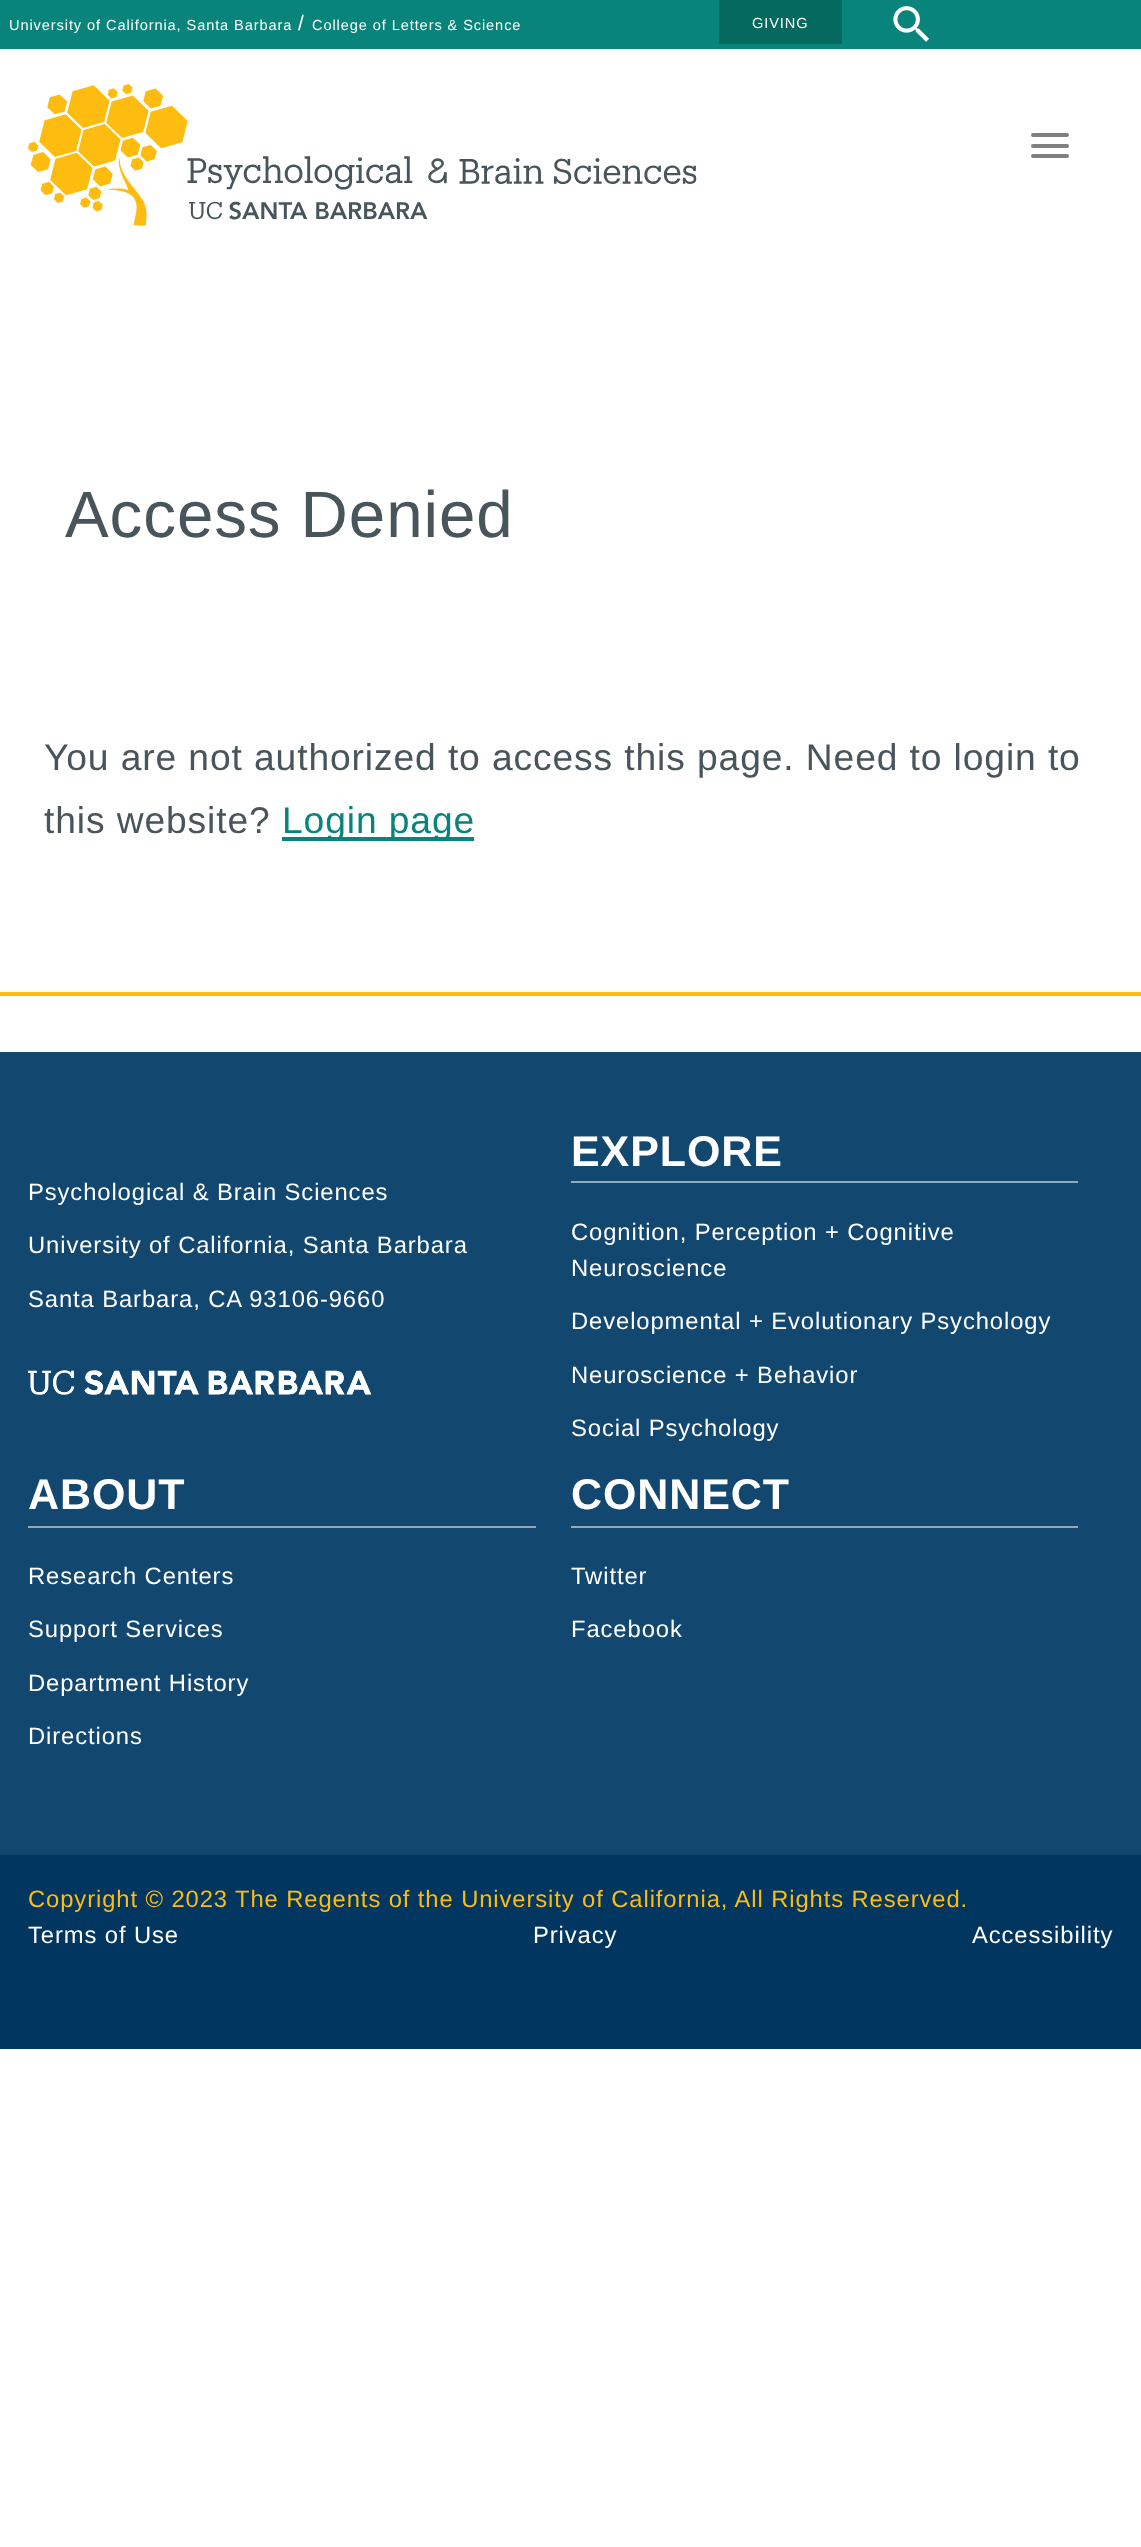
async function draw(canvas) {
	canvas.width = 1141;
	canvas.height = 2547;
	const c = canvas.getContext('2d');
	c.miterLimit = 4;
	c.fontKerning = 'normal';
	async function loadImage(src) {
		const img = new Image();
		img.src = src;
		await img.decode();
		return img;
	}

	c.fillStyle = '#fff';
	c.fillRect(0, 0, 1141, 2547);
	c.fillStyle = '#09847a';
	c.fillRect(0, 0, 1141, 49);
	c.letterSpacing = '0.9px';
	c.font = '14.6px Liberation Sans';
	c.fillStyle = '#fff';
	c.fillText('University of California, Santa Barbara', 9, 30);
	c.font = '21px Liberation Sans';
	c.fillText('/', 298, 30);
	c.font = '14.6px Liberation Sans';
	c.fillText('College of Letters & Science', 312, 30);
	c.fillStyle = '#066960';
	c.fillRect(719, 0, 123, 44);
	c.fillStyle = '#fff';
	c.fillText('GIVING', 752, 28);
	c.drawImage(await loadImage('img1.png'), 893, 6, 36, 36);
	c.drawImage(await loadImage('img2.png'), 28, 84, 669, 142);
	c.fillStyle = '#808080';
	c.beginPath();
	c.roundRect(1031, 133, 38, 4, 2);
	c.fill();
	c.beginPath();
	c.roundRect(1031, 144, 38, 4, 2);
	c.fill();
	c.beginPath();
	c.roundRect(1031, 154, 38, 4, 2);
	c.fill();
	c.font = '65.5px Liberation Sans';
	c.fillStyle = '#48555b';
	c.fillText('Access Denied', 65, 537);
	c.font = '37.2px Liberation Sans';
	c.fillText('You are not authorized to access this page. Need to login to', 44, 770);
	c.fillText('this website?', 44, 833);
	c.fillStyle = '#09847a';
	c.fillRect(282, 837, 192, 4);
	c.fillText('Login page', 282, 833);
	c.fillStyle = '#febc11';
	c.fillRect(0, 992, 1141, 4);
	c.fillStyle = '#124770';
	c.fillRect(0, 1052, 1141, 803);
	c.font = '23.8px Liberation Sans';
	c.fillStyle = '#fff';
	for (const [text, x, y] of [
		['Psychological & Brain Sciences', 28, 1200],
		['University of California, Santa Barbara', 28, 1253],
		['Santa Barbara, CA 93106-9660', 28, 1307],
	]) {
		c.fillText(text, x, y);
	}
	c.drawImage(await loadImage('img3.png'), 28, 1370, 344, 25);
	c.fillStyle = '#90a9bc';
	c.fillRect(571, 1181, 507, 2);
	c.font = 'bold 43px Liberation Sans';
	c.fillStyle = '#fff';
	c.fillText('EXPLORE', 571, 1166);
	c.font = '23.8px Liberation Sans';
	for (const [text, x, y] of [
		['Cognition, Perception + Cognitive', 571, 1240],
		['Neuroscience', 571, 1276],
		['Developmental + Evolutionary Psychology', 571, 1329],
		['Neuroscience + Behavior', 571, 1383],
		['Social Psychology', 571, 1436],
	]) {
		c.fillText(text, x, y);
	}
	c.fillStyle = '#90a9bc';
	c.fillRect(28, 1526, 508, 2);
	c.font = 'bold 43px Liberation Sans';
	c.fillStyle = '#fff';
	c.fillText('ABOUT', 28, 1509);
	c.font = '23.8px Liberation Sans';
	for (const [text, x, y] of [
		['Research Centers', 28, 1584],
		['Support Services', 28, 1637],
		['Department History', 28, 1691],
		['Directions', 28, 1744],
	]) {
		c.fillText(text, x, y);
	}
	c.fillStyle = '#90a9bc';
	c.fillRect(571, 1526, 507, 2);
	c.font = 'bold 43px Liberation Sans';
	c.fillStyle = '#fff';
	c.fillText('CONNECT', 571, 1509);
	c.font = '23.8px Liberation Sans';
	c.fillText('Twitter', 571, 1584);
	c.fillText('Facebook', 571, 1637);
	c.fillStyle = '#013660';
	c.fillRect(0, 1855, 1141, 194);
	c.fillStyle = '#febc11';
	c.fillText('Copyright © 2023 The Regents of the University of California, All Rights Reserved.', 28, 1907);
	c.fillStyle = '#fff';
	for (const [text, x, y] of [
		['Terms of Use', 28, 1943],
		['Privacy', 533, 1943],
		['Accessibility', 972, 1943],
	]) {
		c.fillText(text, x, y);
	}
}

draw(document.querySelector('canvas'));
